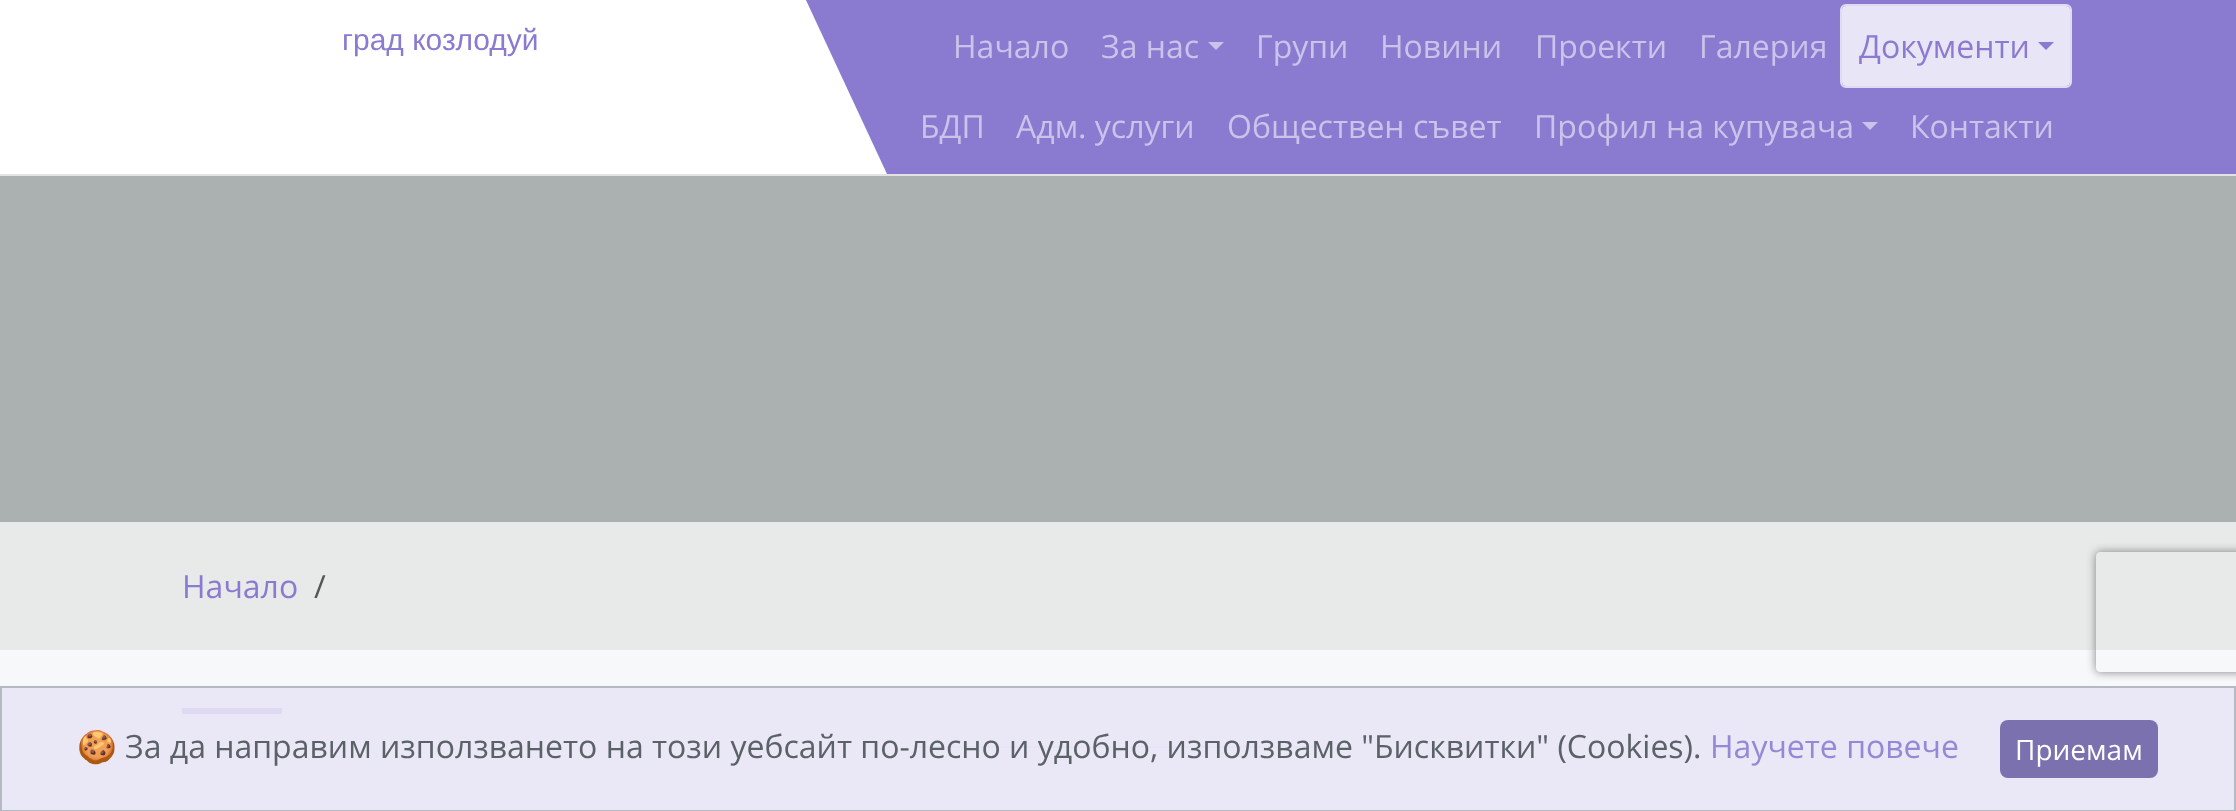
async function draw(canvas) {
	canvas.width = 2236;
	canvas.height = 811;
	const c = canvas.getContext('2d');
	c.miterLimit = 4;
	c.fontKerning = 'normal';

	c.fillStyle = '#f7f8fa';
	c.fillRect(0, 0, 2236, 811);
	c.fillStyle = '#eae7f6';
	c.fillRect(0, 686, 2236, 125);
	c.fillStyle = '#8a7bd1';
	c.fillRect(806, 0, 1430, 174);
	c.fillStyle = '#fff';
	c.beginPath();
	c.moveTo(-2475, -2);
	c.lineTo(805, -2);
	c.lineTo(887, 174);
	c.lineTo(-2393, 174);
	c.closePath();
	c.fill();
	c.strokeStyle = '#e3e3e3';
	c.lineWidth = 2;
	c.strokeRect(-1, -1, 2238, 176);
	c.font = '30px Liberation Sans';
	c.fillStyle = '#8a7bd1';
	c.fillText('град козлодуй', 342, 50);
	c.font = '32px Open Sans';
	c.fillStyle = '#cac4ea';
	c.fillText('Начало', 953, 58);
	c.fillText('За нас', 1101, 58);
	c.beginPath();
	c.moveTo(1208, 42);
	c.lineTo(1224, 42);
	c.lineTo(1216, 50);
	c.closePath();
	c.fill();
	for (const [text, x, y] of [
		['Групи', 1256, 58],
		['Новини', 1380, 58],
		['Проекти', 1535, 58],
		['Галерия', 1699, 58],
	]) {
		c.fillText(text, x, y);
	}
	c.fillStyle = '#e8e5f6';
	c.beginPath();
	c.roundRect(1842, 6, 228, 80, 4);
	c.fill();
	c.fillStyle = '#8a7bd1';
	c.beginPath();
	c.moveTo(2038, 42);
	c.lineTo(2054, 42);
	c.lineTo(2046, 50);
	c.closePath();
	c.fill();
	c.beginPath();
	c.roundRect(1841, 5, 230, 82, 5);
	c.strokeStyle = '#e0dbf3';
	c.stroke();
	c.fillText('Документи', 1859, 58);
	c.fillStyle = '#cac4ea';
	for (const [text, x, y] of [
		['БДП', 920, 138],
		['Адм. услуги', 1016, 138],
		['Обществен съвет', 1227, 138],
		['Профил на купувача', 1534, 138],
	]) {
		c.fillText(text, x, y);
	}
	c.beginPath();
	c.moveTo(1862, 122);
	c.lineTo(1878, 122);
	c.lineTo(1870, 130);
	c.closePath();
	c.fill();
	c.fillText('Контакти', 1910, 138);
	c.fillStyle = '#abb0b0';
	c.fillRect(0, 176, 2236, 346);
	c.fillStyle = '#e8e9e9';
	c.fillRect(0, 522, 2236, 128);
	c.fillStyle = '#8a7bd1';
	c.fillText('Начало', 182, 598);
	c.fillStyle = '#535659';
	c.fillText('/', 314, 598);
	c.fillStyle = '#dfdaf2';
	c.fillRect(182, 708, 100, 6);
	c.fillStyle = '#e7e4f5';
	c.fillRect(918, 746, 400, 2);
	c.strokeStyle = '#adb5bde6';
	c.strokeRect(1, 687, 2234, 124);
	c.save();
	c.beginPath();
	c.moveTo(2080, 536);
	c.lineTo(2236, 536);
	c.lineTo(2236, 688);
	c.lineTo(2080, 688);
	c.closePath();
	c.moveTo(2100, 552);
	c.lineTo(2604, 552);
	c.bezierCurveTo(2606, 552, 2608, 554, 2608, 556);
	c.lineTo(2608, 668);
	c.bezierCurveTo(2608, 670, 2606, 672, 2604, 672);
	c.lineTo(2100, 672);
	c.bezierCurveTo(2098, 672, 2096, 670, 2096, 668);
	c.lineTo(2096, 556);
	c.bezierCurveTo(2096, 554, 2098, 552, 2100, 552);
	c.closePath();
	c.clip('evenodd');
	c.fillStyle = '#808080';
	c.filter = 'blur(5px)';
	c.beginPath();
	c.roundRect(2096, 552, 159, 120, 4);
	c.fill();
	c.filter = 'none';
	c.restore();
	c.font = '32px Noto Color Emoji';
	c.fillStyle = '#5a6167';
	c.fillText('🍪', 77, 758);
	c.font = '32px Open Sans';
	c.fillText('За да направим използването на този уебсайт по-лесно и удобно, използваме "Бисквитки" (Cookies).', 125, 758);
	c.fillStyle = '#9588d5';
	c.fillText('Научете повече', 1710, 758);
	c.fillStyle = '#7c71af';
	c.beginPath();
	c.roundRect(2000, 720, 158, 58, 8);
	c.fill();
	c.font = '28px Open Sans';
	c.fillStyle = '#fefeff';
	c.fillText('Приемам', 2015, 760);
}

draw(document.querySelector('canvas'));
